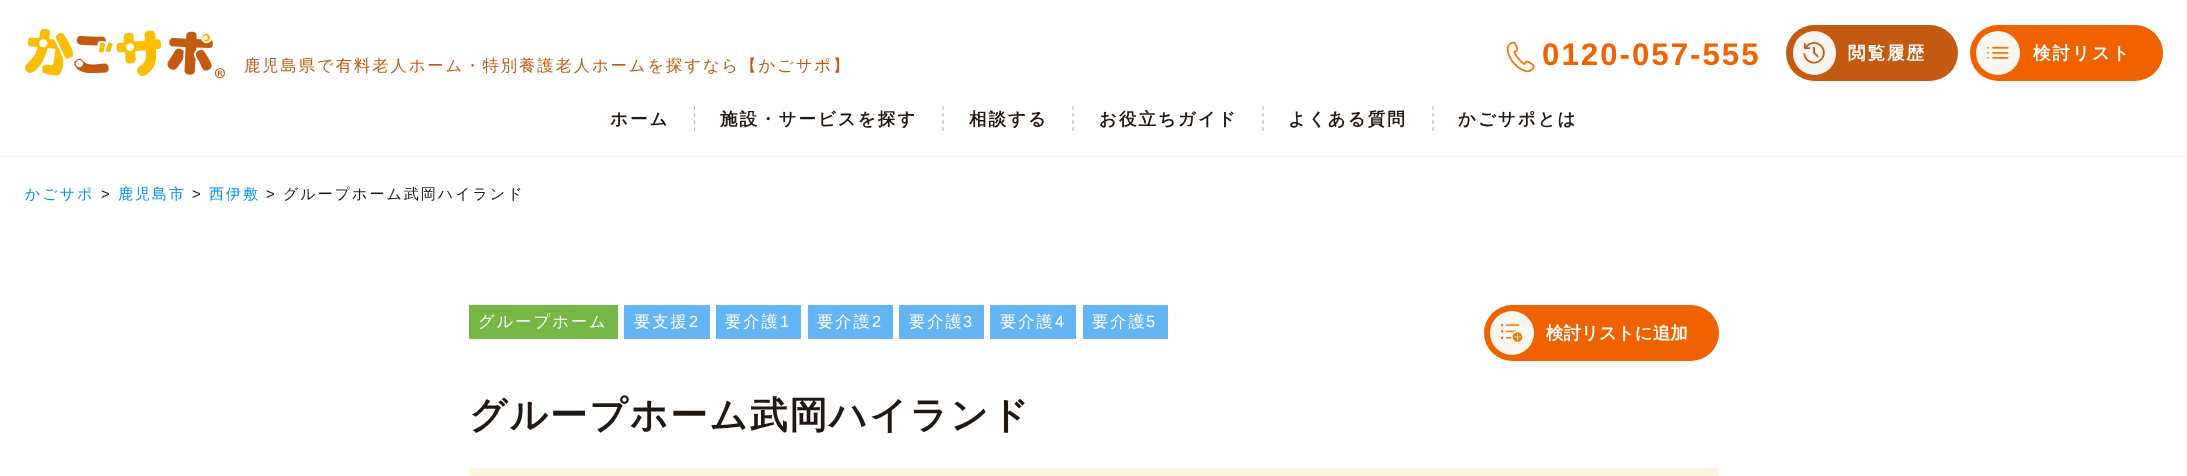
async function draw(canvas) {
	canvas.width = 2187;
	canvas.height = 476;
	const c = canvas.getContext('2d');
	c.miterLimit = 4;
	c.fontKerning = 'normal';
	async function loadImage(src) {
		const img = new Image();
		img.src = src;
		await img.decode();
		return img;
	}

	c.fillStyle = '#fff';
	c.fillRect(0, 0, 2187, 476);
	c.fillStyle = '#f0f0f0';
	c.fillRect(0, 156, 2187, 1);
	c.drawImage(await loadImage('img1.png'), 1506, 41, 29, 32);
	c.letterSpacing = '2px';
	c.font = 'bold 31.25px Liberation Sans';
	c.fillStyle = '#f06100';
	c.fillText('0120-057-555', 1542, 65);
	c.fillStyle = '#c45911';
	c.beginPath();
	c.roundRect(1786, 25, 172, 56, 28);
	c.fill();
	c.fillStyle = '#faf7f0';
	c.beginPath();
	c.roundRect(1793, 31, 43, 44, 21.5);
	c.fill();
	c.drawImage(await loadImage('img2.png'), 1803, 42, 22, 22);
	c.font = 'bold 17.5px WenQuanYi Zen Hei';
	c.fillStyle = '#fff';
	c.fillText('閲覧履歴', 1848, 59);
	c.fillStyle = '#f06100';
	c.beginPath();
	c.roundRect(1970, 25, 193, 56, 28);
	c.fill();
	c.fillStyle = '#faf7f0';
	c.beginPath();
	c.arc(1998, 53, 22, 0, 2 * Math.PI);
	c.fill();
	c.drawImage(await loadImage('img3.png'), 1987, 46, 22, 13);
	c.fillStyle = '#fff';
	c.fillText('検討リスト', 2033, 59);
	c.drawImage(await loadImage('img4.png'), 25, 29, 200, 49);
	c.font = '500 16.25px WenQuanYi Zen Hei';
	c.fillStyle = '#c45911';
	c.fillText('鹿児島県で有料老人ホーム・特別養護老人ホームを探すなら【かごサポ】', 244, 71);
	c.beginPath();
	c.moveTo(694.5, 106);
	c.lineTo(694.5, 131);
	c.strokeStyle = '#c7b599';
	c.lineWidth = 1.2;
	c.setLineDash([3.75, 3.34]);
	c.stroke();
	c.font = 'bold 17.5px WenQuanYi Zen Hei';
	c.fillStyle = '#211812';
	c.fillText('ホーム', 610, 125);
	c.beginPath();
	c.moveTo(943, 106);
	c.lineTo(943, 131);
	c.stroke();
	c.fillText('施設・サービスを探す', 720, 125);
	c.beginPath();
	c.moveTo(1073, 106);
	c.lineTo(1073, 131);
	c.stroke();
	c.fillText('相談する', 969, 125);
	c.beginPath();
	c.moveTo(1263, 106);
	c.lineTo(1263, 131);
	c.stroke();
	c.fillText('お役立ちガイド', 1099, 125);
	c.beginPath();
	c.moveTo(1433, 106);
	c.lineTo(1433, 131);
	c.stroke();
	c.fillText('よくある質問', 1288, 125);
	c.fillText('かごサポとは', 1458, 125);
	c.font = '500 15px WenQuanYi Zen Hei';
	c.fillStyle = '#018fff';
	c.fillText('かごサポ', 25, 199);
	c.font = '15px Liberation Sans';
	c.fillStyle = '#211812';
	c.fillText('>', 101, 199);
	c.font = '500 15px WenQuanYi Zen Hei';
	c.fillStyle = '#018fff';
	c.fillText('鹿児島市', 118, 199);
	c.font = '15px Liberation Sans';
	c.fillStyle = '#211812';
	c.fillText('>', 192, 199);
	c.font = '500 15px WenQuanYi Zen Hei';
	c.fillStyle = '#018fff';
	c.fillText('西伊敷', 209, 199);
	c.font = '15px Liberation Sans';
	c.fillStyle = '#211812';
	c.fillText('>', 266, 199);
	c.font = '500 15px WenQuanYi Zen Hei';
	c.fillText('グループホーム武岡ハイランド', 283, 199);
	c.fillStyle = '#76b746';
	c.fillRect(469, 305, 149, 34);
	c.font = '500 16.25px WenQuanYi Zen Hei';
	c.fillStyle = '#fff';
	c.fillText('グループホーム', 478, 327);
	c.fillStyle = '#63b5f6';
	c.fillRect(624, 305, 86, 34);
	c.fillStyle = '#fff';
	c.fillText('要支援', 634, 327);
	c.font = '16.25px Liberation Sans';
	c.fillText('2', 689, 327);
	c.fillStyle = '#63b5f6';
	c.fillRect(716, 305, 85, 34);
	c.font = '500 16.25px WenQuanYi Zen Hei';
	c.fillStyle = '#fff';
	c.fillText('要介護', 725, 327);
	c.font = '16.25px Liberation Sans';
	c.fillText('1', 780, 327);
	c.fillStyle = '#63b5f6';
	c.fillRect(808, 305, 85, 34);
	c.font = '500 16.25px WenQuanYi Zen Hei';
	c.fillStyle = '#fff';
	c.fillText('要介護', 817, 327);
	c.font = '16.25px Liberation Sans';
	c.fillText('2', 872, 327);
	c.fillStyle = '#63b5f6';
	c.fillRect(899, 305, 85, 34);
	c.font = '500 16.25px WenQuanYi Zen Hei';
	c.fillStyle = '#fff';
	c.fillText('要介護', 909, 327);
	c.font = '16.25px Liberation Sans';
	c.fillText('3', 963, 327);
	c.fillStyle = '#63b5f6';
	c.fillRect(990, 305, 86, 34);
	c.font = '500 16.25px WenQuanYi Zen Hei';
	c.fillStyle = '#fff';
	c.fillText('要介護', 1000, 327);
	c.font = '16.25px Liberation Sans';
	c.fillText('4', 1055, 327);
	c.fillStyle = '#63b5f6';
	c.fillRect(1083, 305, 85, 34);
	c.font = '500 16.25px WenQuanYi Zen Hei';
	c.fillStyle = '#fff';
	c.fillText('要介護', 1092, 327);
	c.font = '16.25px Liberation Sans';
	c.fillText('5', 1146, 327);
	c.fillStyle = '#f06100';
	c.beginPath();
	c.roundRect(1484, 305, 235, 56, 28);
	c.fill();
	c.fillStyle = '#faf7f0';
	c.beginPath();
	c.arc(1512, 333, 22, 0, 2 * Math.PI);
	c.fill();
	c.drawImage(await loadImage('img5.png'), 1500, 323, 23, 19);
	c.letterSpacing = '0px';
	c.font = 'bold 17.5px WenQuanYi Zen Hei';
	c.fillStyle = '#fff';
	c.fillText('検討リストに追加', 1546, 339);
	c.letterSpacing = '2px';
	c.font = 'bold 37.5px WenQuanYi Zen Hei';
	c.fillStyle = '#211812';
	c.fillText('グループホーム武岡ハイランド', 469, 428);
	c.fillStyle = '#fff5de';
	c.fillRect(469, 468, 1250, 8);
}

draw(document.querySelector('canvas'));
